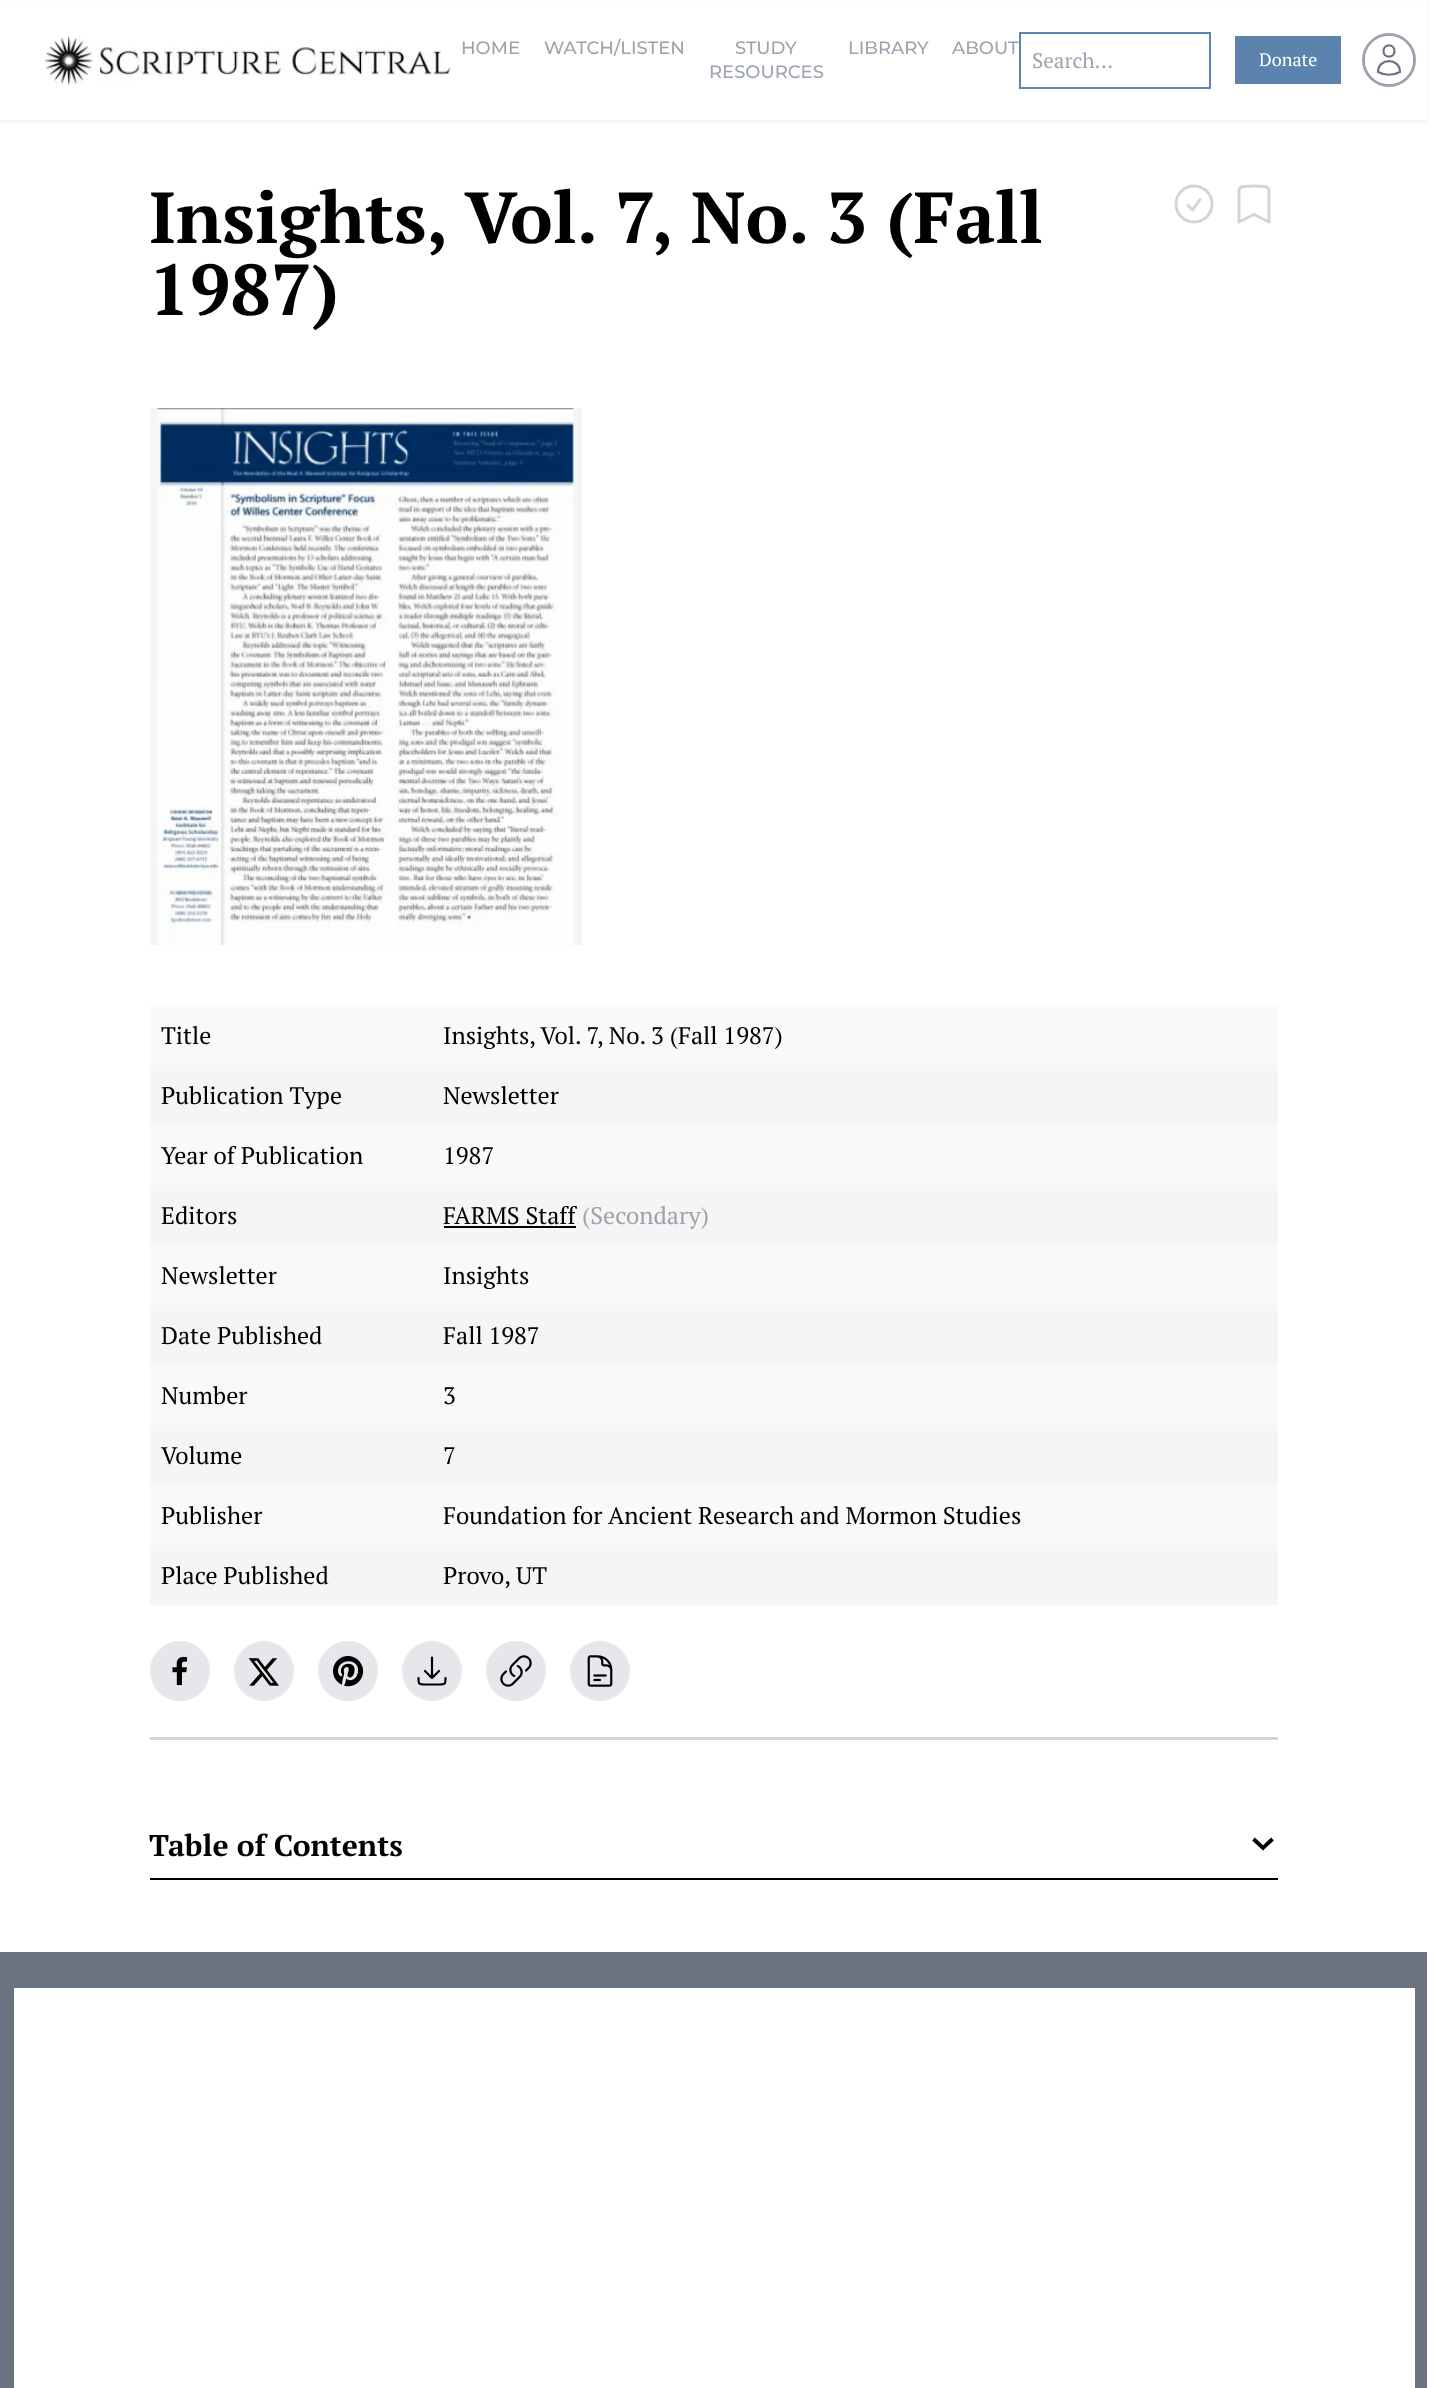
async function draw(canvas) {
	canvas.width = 1449;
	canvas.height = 2388;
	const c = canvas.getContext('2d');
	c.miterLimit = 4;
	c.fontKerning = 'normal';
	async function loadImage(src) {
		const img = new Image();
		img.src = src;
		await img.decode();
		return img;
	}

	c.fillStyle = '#fff';
	c.fillRect(0, 0, 1449, 2388);
	c.fillStyle = '#0000000d';
	c.filter = 'blur(1.5px)';
	c.beginPath();
	c.rect(0, 2, 1427, 120);
	c.fill();
	c.filter = 'none';
	c.fillStyle = '#fff';
	c.fillRect(0, 1, 1427, 119);
	c.drawImage(await loadImage('img1.png'), 44, 36, 407, 51);
	c.font = '100 18px Montserrat';
	c.fillStyle = '#9ca3af';
	for (const [text, x, y] of [
		['HOME', 461, 54],
		['WATCH/LISTEN', 544, 54],
		['STUDY', 735, 54],
		['RESOURCES', 709, 78],
		['LIBRARY', 848, 54],
		['ABOUT', 952, 54],
	]) {
		c.fillText(text, x, y);
	}
	c.strokeStyle = '#5c83ad';
	c.lineWidth = 2;
	c.strokeRect(1020, 33, 190, 55);
	c.font = '21px PT Serif';
	c.fillText('Search...', 1032, 68);
	c.fillStyle = '#5c83ad';
	c.fillRect(1235, 36, 106, 48);
	c.font = '18px PT Serif';
	c.fillStyle = '#fff';
	c.fillText('Donate', 1259, 66);
	c.beginPath();
	c.arc(1389, 60, 25.5, 0, 2 * Math.PI);
	c.strokeStyle = '#9ca3af';
	c.lineWidth = 3;
	c.stroke();
	c.beginPath();
	c.arc(1389, 60, 24, 0, 2 * Math.PI);
	c.fill();
	c.beginPath();
	c.moveTo(1394.5, 51);
	c.bezierCurveTo(1394.5, 58.5, 1383.5, 58.5, 1383.5, 51);
	c.bezierCurveTo(1383.5, 43.5, 1394.5, 43.5, 1394.5, 51);
	c.closePath();
	c.moveTo(1378, 72);
	c.bezierCurveTo(1378, 57.5, 1400, 57.5, 1400, 72);
	c.bezierCurveTo(1393, 75.5, 1385, 75.5, 1378, 72);
	c.closePath();
	c.strokeStyle = '#6b7280';
	c.lineWidth = 2.2;
	c.lineCap = 'round';
	c.lineJoin = 'round';
	c.stroke();
	c.font = 'bold 72px PT Serif';
	c.fillStyle = '#000';
	c.fillText('Insights, Vol. 7, No. 3 (Fall', 149, 243);
	c.fillText('1987)', 149, 315);
	c.beginPath();
	c.moveTo(1188, 205.5);
	c.lineTo(1192.5, 210);
	c.lineTo(1200, 199.5);
	c.moveTo(1212, 204);
	c.bezierCurveTo(1212, 214, 1204, 222, 1194, 222);
	c.bezierCurveTo(1184, 222, 1176, 214, 1176, 204);
	c.bezierCurveTo(1176, 194, 1184, 186, 1194, 186);
	c.bezierCurveTo(1204, 186, 1212, 194, 1212, 204);
	c.closePath();
	c.strokeStyle = '#d1d5db';
	c.lineWidth = 3;
	c.stroke();
	c.beginPath();
	c.moveTo(1265, 186.5);
	c.bezierCurveTo(1267.5, 187, 1269, 189, 1269, 191);
	c.lineTo(1269, 222);
	c.lineTo(1254, 214.5);
	c.lineTo(1239, 222);
	c.lineTo(1239, 191);
	c.bezierCurveTo(1239, 189, 1240.5, 187, 1243, 186.5);
	c.bezierCurveTo(1250, 186, 1258, 186, 1265, 186.5);
	c.closePath();
	c.stroke();
	c.fillStyle = '#f5f5f5';
	c.fillRect(150, 408, 432, 537);
	c.drawImage(await loadImage('img2.png'), 156, 408, 418, 537);
	c.fillStyle = '#f9f9f9';
	c.fillRect(150, 1005, 1128, 60);
	c.font = '24px PT Serif';
	c.fillStyle = '#000';
	c.fillText('Title', 161, 1044);
	c.fillText('Insights, Vol. 7, No. 3 (Fall 1987)', 443, 1044);
	c.fillStyle = '#f5f5f5';
	c.fillRect(150, 1065, 1128, 60);
	c.fillStyle = '#000';
	c.fillText('Publication Type', 161, 1104);
	c.fillText('Newsletter', 443, 1104);
	c.fillStyle = '#f9f9f9';
	c.fillRect(150, 1125, 1128, 60);
	c.fillStyle = '#000';
	c.fillText('Year of Publication', 161, 1164);
	c.fillText('1987', 443, 1164);
	c.fillStyle = '#f5f5f5';
	c.fillRect(150, 1185, 1128, 60);
	c.fillStyle = '#000';
	c.fillText('Editors', 161, 1224);
	c.fillText('FARMS Staff', 443, 1224);
	c.fillRect(444, 1226, 132, 2);
	c.fillStyle = '#9ca3af';
	c.fillText('(Secondary)', 582, 1224);
	c.fillStyle = '#f9f9f9';
	c.fillRect(150, 1245, 1128, 60);
	c.fillStyle = '#000';
	c.fillText('Newsletter', 161, 1284);
	c.fillText('Insights', 443, 1284);
	c.fillStyle = '#f5f5f5';
	c.fillRect(150, 1305, 1128, 60);
	c.fillStyle = '#000';
	c.fillText('Date Published', 161, 1344);
	c.fillText('Fall 1987', 443, 1344);
	c.fillStyle = '#f9f9f9';
	c.fillRect(150, 1365, 1128, 60);
	c.fillStyle = '#000';
	c.fillText('Number', 161, 1404);
	c.fillText('3', 443, 1404);
	c.fillStyle = '#f5f5f5';
	c.fillRect(150, 1425, 1128, 60);
	c.fillStyle = '#000';
	c.fillText('Volume', 161, 1464);
	c.fillText('7', 443, 1464);
	c.fillStyle = '#f9f9f9';
	c.fillRect(150, 1485, 1128, 60);
	c.fillStyle = '#000';
	c.fillText('Publisher', 161, 1524);
	c.fillText('Foundation for Ancient Research and Mormon Studies', 443, 1524);
	c.fillStyle = '#f5f5f5';
	c.fillRect(150, 1545, 1128, 60);
	c.fillStyle = '#000';
	c.fillText('Place Published', 161, 1584);
	c.fillText('Provo, UT', 443, 1584);
	c.fillStyle = '#e5e7eb';
	c.beginPath();
	c.arc(180, 1671, 30, 0, 2 * Math.PI);
	c.fill();
	c.drawImage(await loadImage('img3.png'), 172, 1656, 16, 30);
	c.beginPath();
	c.arc(264, 1671, 30, 0, 2 * Math.PI);
	c.fill();
	c.drawImage(await loadImage('img4.png'), 248, 1658, 31, 28);
	c.beginPath();
	c.arc(348, 1671, 30, 0, 2 * Math.PI);
	c.fill();
	c.drawImage(await loadImage('img5.png'), 333, 1656, 31, 31);
	c.beginPath();
	c.arc(432, 1671, 30, 0, 2 * Math.PI);
	c.fill();
	c.beginPath();
	c.moveTo(418.5, 1678);
	c.bezierCurveTo(418.5, 1684, 418.5, 1684.5, 425, 1684.5);
	c.lineTo(439, 1684.5);
	c.bezierCurveTo(445.5, 1684.5, 445.5, 1684, 445.5, 1678);
	c.moveTo(439, 1671);
	c.lineTo(432, 1678);
	c.moveTo(432, 1678);
	c.lineTo(425, 1671);
	c.moveTo(432, 1678);
	c.lineTo(432, 1657.5);
	c.strokeStyle = '#000';
	c.lineWidth = 2.2;
	c.stroke();
	c.beginPath();
	c.arc(516, 1671, 30, 0, 2 * Math.PI);
	c.fill();
	c.drawImage(await loadImage('img6.png'), 500, 1655, 32, 32);
	c.beginPath();
	c.arc(600, 1671, 30, 0, 2 * Math.PI);
	c.fill();
	c.drawImage(await loadImage('img7.png'), 587, 1655, 26, 32);
	c.fillStyle = '#d6d3d1';
	c.fillRect(150, 1737, 1128, 3);
	c.fillStyle = '#000';
	c.fillRect(150, 1878, 1128, 2);
	c.font = 'bold 30px PT Serif';
	c.fillText('Table of Contents', 149, 1856);
	c.beginPath();
	c.moveTo(1272.5, 1839);
	c.lineTo(1263, 1848);
	c.lineTo(1253.5, 1839);
	c.lineWidth = 3.8;
	c.lineCap = 'butt';
	c.lineJoin = 'miter';
	c.stroke();
	c.fillStyle = '#6b7280';
	c.fillRect(0, 1952, 1427, 436);
	c.fillStyle = '#fff';
	c.fillRect(14, 1988, 1401, 400);
}

draw(document.querySelector('canvas'));
